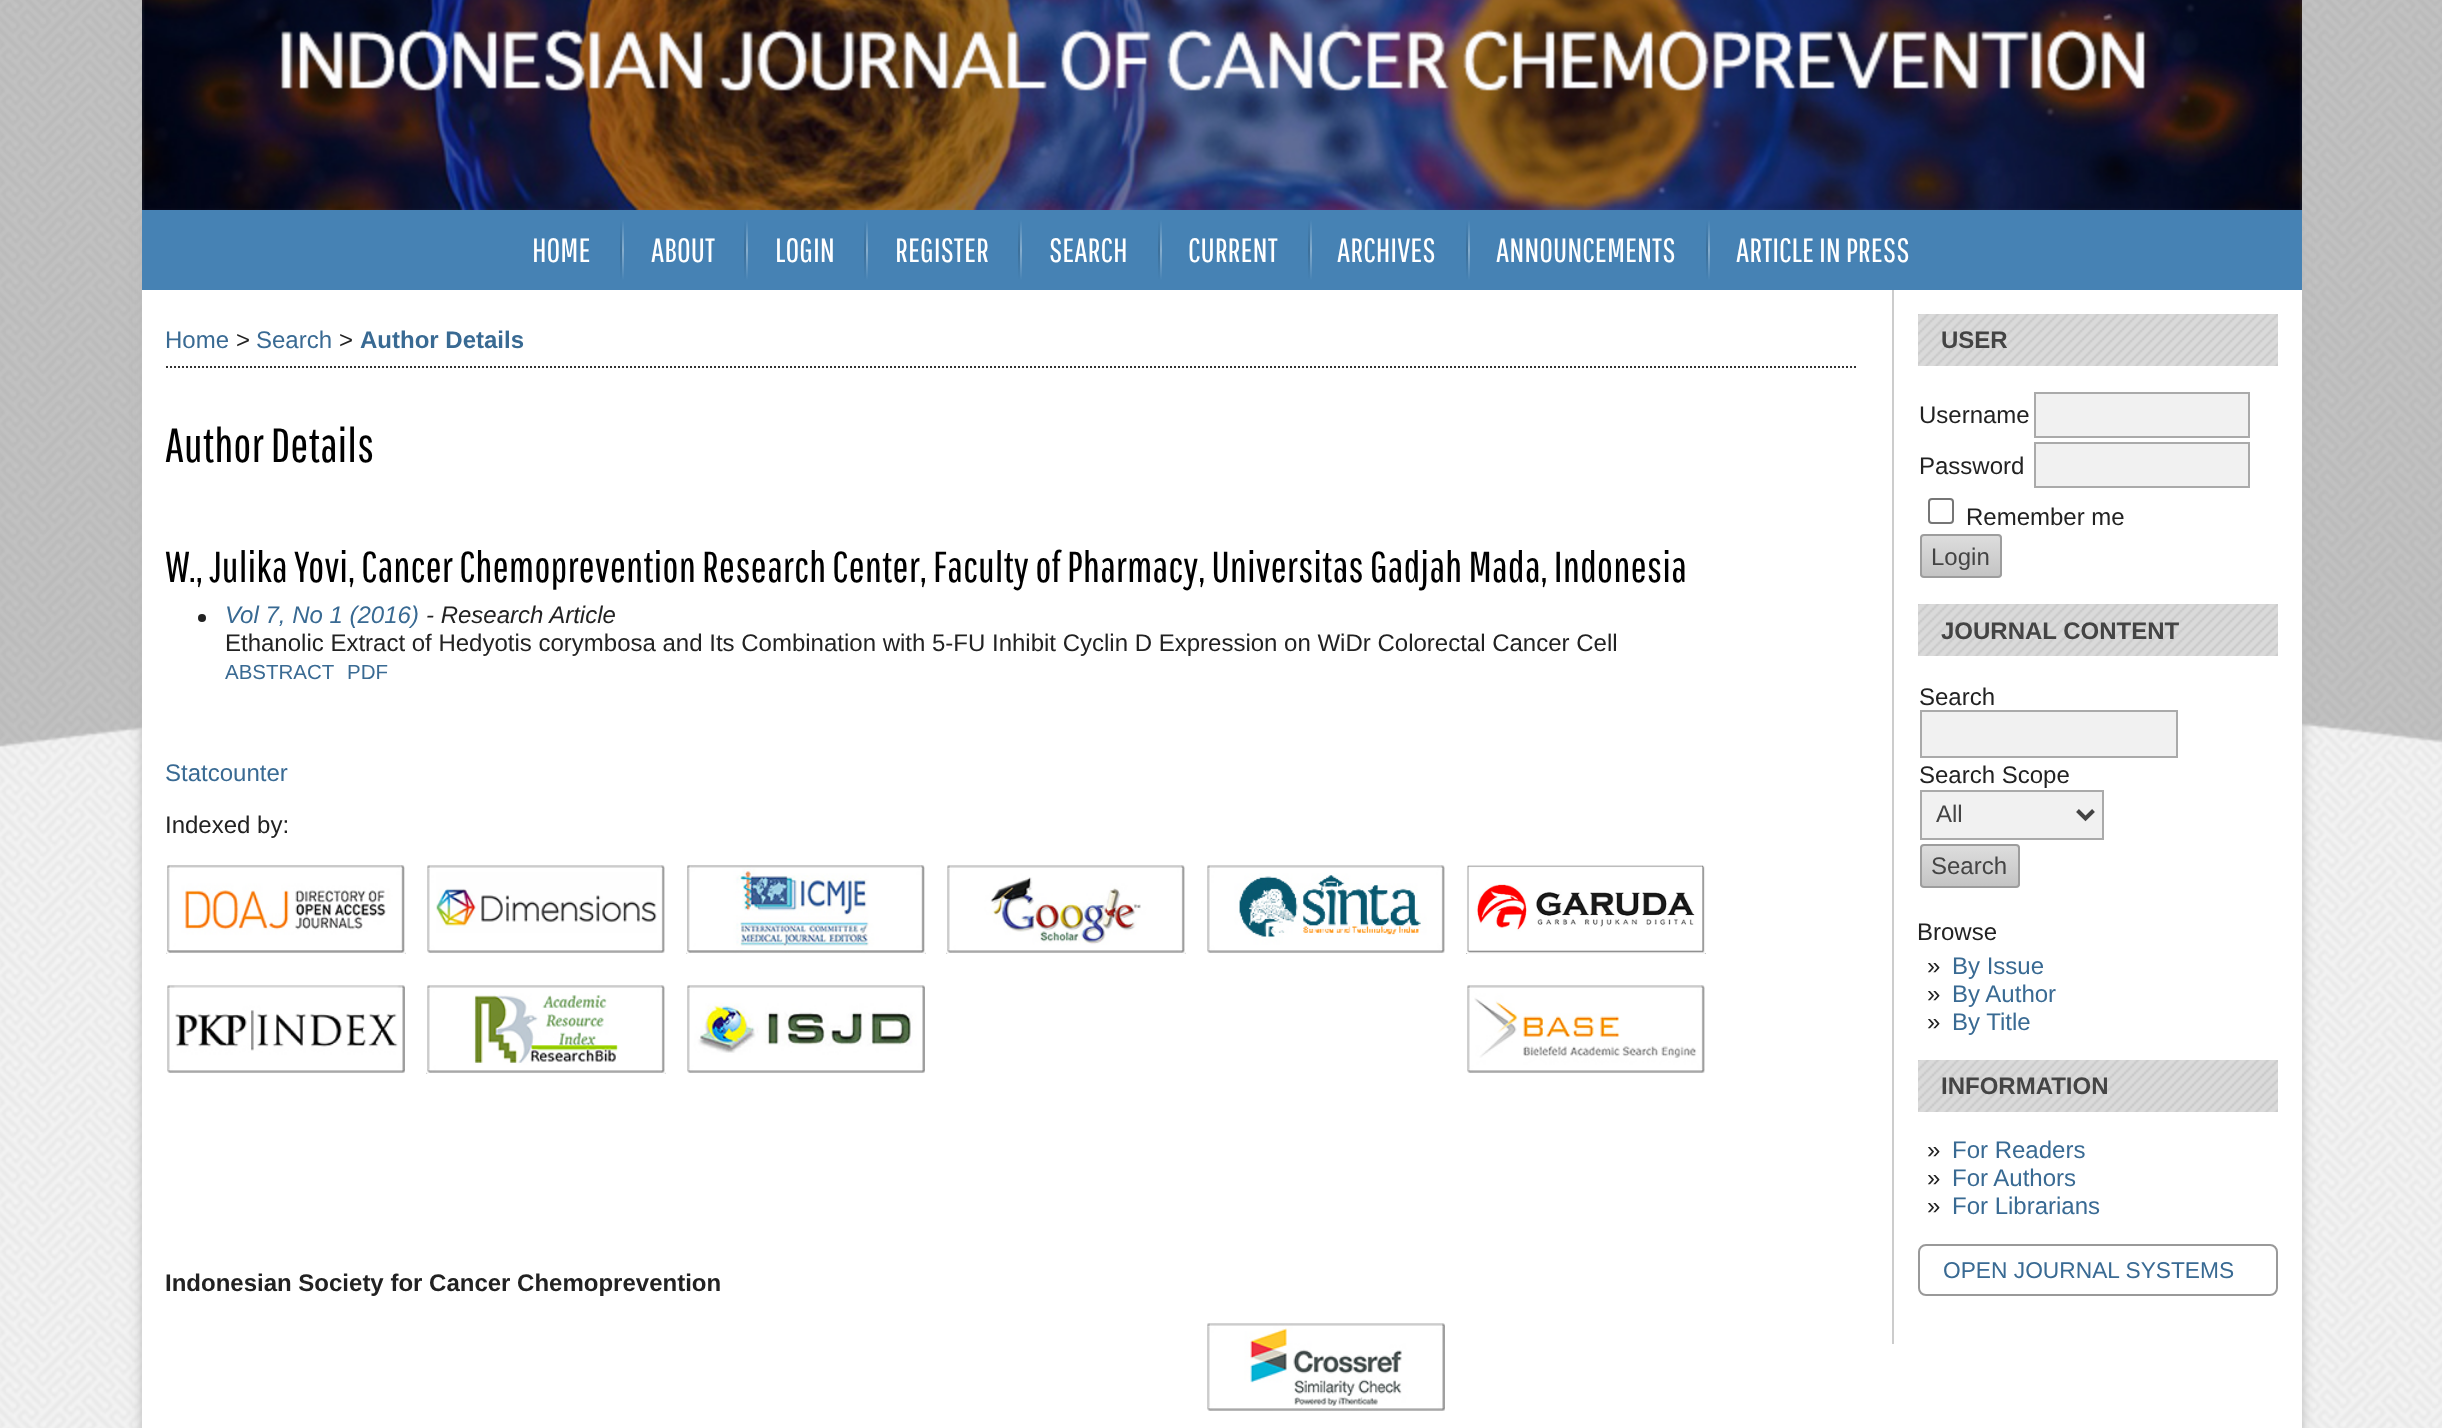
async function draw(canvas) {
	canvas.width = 2442;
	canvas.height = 1428;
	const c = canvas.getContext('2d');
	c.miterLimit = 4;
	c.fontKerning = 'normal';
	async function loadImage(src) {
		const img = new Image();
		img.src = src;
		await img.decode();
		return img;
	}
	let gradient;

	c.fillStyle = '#fff';
	c.fillRect(0, 0, 2442, 1428);
	c.drawImage(await loadImage('img1.png'), 0, 0, 2442, 1428);
	c.drawImage(await loadImage('img2.png'), 0, 0, 2442, 747);
	c.drawImage(await loadImage('img3.png'), 142, 0, 2160, 210);
	c.fillStyle = '#bbb';
	c.filter = 'blur(6px)';
	c.beginPath();
	c.rect(142, 220, 2160, 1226);
	c.fill();
	c.filter = 'none';
	c.fillStyle = '#fff';
	c.fillRect(142, 290, 2160, 1138);
	c.fillStyle = '#4682b4';
	c.fillRect(142, 210, 2160, 80);
	c.font = '33.5px Pathway Gothic One';
	c.fillStyle = '#fff';
	c.fillText('HOME', 532, 262);
	gradient = c.createLinearGradient(621, 220, 621, 280);
	gradient.addColorStop(0, '#4682b4');
	gradient.addColorStop(0.5, '#3c6f99');
	gradient.addColorStop(1, '#4682b4');
	c.fillStyle = gradient;
	c.fillRect(620, 220, 2, 60);
	gradient = c.createLinearGradient(623, 220, 623, 280);
	gradient.addColorStop(0, '#4682b4');
	gradient.addColorStop(0.5, '#87aece');
	gradient.addColorStop(1, '#4682b4');
	c.fillStyle = gradient;
	c.fillRect(622, 220, 2, 60);
	c.fillStyle = '#fff';
	c.fillText('ABOUT', 651, 262);
	gradient = c.createLinearGradient(745, 220, 745, 280);
	gradient.addColorStop(0, '#4682b4');
	gradient.addColorStop(0.5, '#3c6f99');
	gradient.addColorStop(1, '#4682b4');
	c.fillStyle = gradient;
	c.fillRect(744, 220, 2, 60);
	gradient = c.createLinearGradient(747, 220, 747, 280);
	gradient.addColorStop(0, '#4682b4');
	gradient.addColorStop(0.5, '#87aece');
	gradient.addColorStop(1, '#4682b4');
	c.fillStyle = gradient;
	c.fillRect(746, 220, 2, 60);
	c.fillStyle = '#fff';
	c.fillText('LOGIN', 775, 262);
	gradient = c.createLinearGradient(865, 220, 865, 280);
	gradient.addColorStop(0, '#4682b4');
	gradient.addColorStop(0.5, '#3c6f99');
	gradient.addColorStop(1, '#4682b4');
	c.fillStyle = gradient;
	c.fillRect(864, 220, 2, 60);
	gradient = c.createLinearGradient(867, 220, 867, 280);
	gradient.addColorStop(0, '#4682b4');
	gradient.addColorStop(0.5, '#87aece');
	gradient.addColorStop(1, '#4682b4');
	c.fillStyle = gradient;
	c.fillRect(866, 220, 2, 60);
	c.fillStyle = '#fff';
	c.fillText('REGISTER', 895, 262);
	gradient = c.createLinearGradient(1019, 220, 1019, 280);
	gradient.addColorStop(0, '#4682b4');
	gradient.addColorStop(0.5, '#3c6f99');
	gradient.addColorStop(1, '#4682b4');
	c.fillStyle = gradient;
	c.fillRect(1018, 220, 2, 60);
	gradient = c.createLinearGradient(1021, 220, 1021, 280);
	gradient.addColorStop(0, '#4682b4');
	gradient.addColorStop(0.5, '#87aece');
	gradient.addColorStop(1, '#4682b4');
	c.fillStyle = gradient;
	c.fillRect(1020, 220, 2, 60);
	c.fillStyle = '#fff';
	c.fillText('SEARCH', 1049, 262);
	gradient = c.createLinearGradient(1159, 220, 1159, 280);
	gradient.addColorStop(0, '#4682b4');
	gradient.addColorStop(0.5, '#3c6f99');
	gradient.addColorStop(1, '#4682b4');
	c.fillStyle = gradient;
	c.fillRect(1158, 220, 2, 60);
	gradient = c.createLinearGradient(1161, 220, 1161, 280);
	gradient.addColorStop(0, '#4682b4');
	gradient.addColorStop(0.5, '#87aece');
	gradient.addColorStop(1, '#4682b4');
	c.fillStyle = gradient;
	c.fillRect(1160, 220, 2, 60);
	c.fillStyle = '#fff';
	c.fillText('CURRENT', 1188, 262);
	gradient = c.createLinearGradient(1309, 220, 1309, 280);
	gradient.addColorStop(0, '#4682b4');
	gradient.addColorStop(0.5, '#3c6f99');
	gradient.addColorStop(1, '#4682b4');
	c.fillStyle = gradient;
	c.fillRect(1308, 220, 2, 60);
	gradient = c.createLinearGradient(1311, 220, 1311, 280);
	gradient.addColorStop(0, '#4682b4');
	gradient.addColorStop(0.5, '#87aece');
	gradient.addColorStop(1, '#4682b4');
	c.fillStyle = gradient;
	c.fillRect(1310, 220, 2, 60);
	c.fillStyle = '#fff';
	c.fillText('ARCHIVES', 1337, 262);
	gradient = c.createLinearGradient(1467, 220, 1467, 280);
	gradient.addColorStop(0, '#4682b4');
	gradient.addColorStop(0.5, '#3c6f99');
	gradient.addColorStop(1, '#4682b4');
	c.fillStyle = gradient;
	c.fillRect(1466, 220, 2, 60);
	gradient = c.createLinearGradient(1469, 220, 1469, 280);
	gradient.addColorStop(0, '#4682b4');
	gradient.addColorStop(0.5, '#87aece');
	gradient.addColorStop(1, '#4682b4');
	c.fillStyle = gradient;
	c.fillRect(1468, 220, 2, 60);
	c.fillStyle = '#fff';
	c.fillText('ANNOUNCEMENTS', 1496, 262);
	gradient = c.createLinearGradient(1707, 220, 1707, 280);
	gradient.addColorStop(0, '#4682b4');
	gradient.addColorStop(0.5, '#3c6f99');
	gradient.addColorStop(1, '#4682b4');
	c.fillStyle = gradient;
	c.fillRect(1706, 220, 2, 60);
	gradient = c.createLinearGradient(1709, 220, 1709, 280);
	gradient.addColorStop(0, '#4682b4');
	gradient.addColorStop(0.5, '#87aece');
	gradient.addColorStop(1, '#4682b4');
	c.fillStyle = gradient;
	c.fillRect(1708, 220, 2, 60);
	c.fillStyle = '#fff';
	c.fillText('ARTICLE IN PRESS', 1736, 262);
	c.beginPath();
	c.moveTo(166, 367);
	c.lineTo(1858, 367);
	c.strokeStyle = '#333';
	c.lineWidth = 2;
	c.setLineDash([2, 2]);
	c.stroke();
	c.font = '24px Liberation Sans';
	c.fillStyle = '#396a93';
	c.fillText('Home', 165, 348);
	c.fillStyle = '#222';
	c.fillText('>', 236, 348);
	c.fillStyle = '#396a93';
	c.fillText('Search', 256, 348);
	c.fillStyle = '#222';
	c.fillText('>', 339, 348);
	c.font = 'bold 24px Liberation Sans';
	c.fillStyle = '#396a93';
	c.fillText('Author Details', 360, 348);
	c.font = '48px Pathway Gothic One';
	c.fillStyle = '#000';
	c.fillText('Author Details', 165, 462);
	c.font = '43.2px Pathway Gothic One';
	c.fillText('W., Julika Yovi, Cancer Chemoprevention Research Center, Faculty of Pharmacy, Universitas Gadjah Mada, Indonesia', 165, 582);
	c.fillStyle = '#222';
	c.beginPath();
	c.arc(202, 618, 4, 0, 2 * Math.PI);
	c.fill();
	c.font = 'italic 24px Liberation Sans';
	c.fillStyle = '#396a93';
	c.fillText('Vol 7, No 1 (2016)', 225, 623);
	c.fillStyle = '#222';
	c.fillText('- Research Article', 426, 623);
	c.font = '24px Liberation Sans';
	c.fillText('Ethanolic Extract of Hedyotis corymbosa and Its Combination with 5-FU Inhibit Cyclin D Expression on WiDr Colorectal Cancer Cell', 225, 651);
	c.font = '20.5px Liberation Sans';
	c.fillStyle = '#396a93';
	c.fillText('ABSTRACT', 225, 679);
	c.fillText('PDF', 347, 679);
	c.font = '24px Liberation Sans';
	c.fillText('Statcounter', 165, 781);
	c.fillStyle = '#222';
	c.fillText('Indexed by:', 165, 833);
	c.drawImage(await loadImage('img4.png'), 166, 865, 240, 89);
	c.drawImage(await loadImage('img5.png'), 427, 865, 238, 88);
	c.drawImage(await loadImage('img6.png'), 686, 865, 240, 89);
	c.drawImage(await loadImage('img7.png'), 946, 865, 240, 89);
	c.drawImage(await loadImage('img8.png'), 1207, 865, 238, 88);
	c.drawImage(await loadImage('img9.png'), 1466, 865, 240, 89);
	c.drawImage(await loadImage('img10.png'), 167, 985, 238, 88);
	c.drawImage(await loadImage('img11.png'), 426, 985, 240, 89);
	c.drawImage(await loadImage('img12.png'), 687, 985, 238, 88);
	c.drawImage(await loadImage('img13.png'), 1467, 985, 238, 88);
	c.font = 'bold 24px Liberation Sans';
	c.fillText('Indonesian Society for Cancer Chemoprevention', 165, 1291);
	c.drawImage(await loadImage('img14.png'), 1207, 1323, 238, 88);
	c.fillStyle = '#ccc';
	c.fillRect(1892, 290, 2, 1054);
	c.fillStyle = '#dadada';
	c.fillRect(1918, 314, 360, 52);
	c.drawImage(await loadImage('img15.png'), 1918, 314, 360, 52);
	c.fillStyle = '#444';
	c.fillText('USER', 1941, 348);
	c.font = '24px Liberation Sans';
	c.fillStyle = '#222';
	c.fillText('Username', 1919, 423);
	c.fillStyle = '#f1f1f1';
	c.beginPath();
	c.rect(2035, 393, 214, 44);
	c.fill();
	c.strokeStyle = '#aaa';
	c.setLineDash([]);
	c.stroke();
	c.fillStyle = '#222';
	c.fillText('Password', 1919, 474);
	c.fillStyle = '#f1f1f1';
	c.beginPath();
	c.rect(2035, 443, 214, 44);
	c.fill();
	c.stroke();
	c.beginPath();
	c.roundRect(1929, 499, 24, 24, 3);
	c.strokeStyle = '#767676';
	c.stroke();
	c.fillStyle = '#222';
	c.fillText('Remember me', 1966, 525);
	c.save();
	c.beginPath();
	c.roundRect(1920, 534, 82, 44, 4);
	c.clip();
	gradient = c.createLinearGradient(1961, 536, 1961, 576);
	gradient.addColorStop(0, '#ddd');
	gradient.addColorStop(1, '#c4c4c4');
	c.fillStyle = gradient;
	c.fillRect(1920, 536, 82, 40);
	c.restore();
	c.beginPath();
	c.roundRect(1921, 535, 80, 42, 3);
	c.strokeStyle = '#9d9d9d';
	c.stroke();
	c.fillStyle = '#444';
	c.fillText('Login', 1931, 565);
	c.fillStyle = '#dadada';
	c.fillRect(1918, 604, 360, 52);
	c.drawImage(await loadImage('img15.png'), 1918, 604, 360, 52);
	c.font = 'bold 24px Liberation Sans';
	c.fillStyle = '#444';
	c.fillText('JOURNAL CONTENT', 1941, 639);
	c.font = '24px Liberation Sans';
	c.fillStyle = '#222';
	c.fillText('Search', 1919, 705);
	c.fillStyle = '#f1f1f1';
	c.beginPath();
	c.rect(1921, 711, 256, 46);
	c.fill();
	c.strokeStyle = '#aaa';
	c.stroke();
	c.fillStyle = '#222';
	c.fillText('Search Scope', 1919, 783);
	c.fillStyle = '#f1f1f1';
	c.beginPath();
	c.rect(1921, 791, 182, 48);
	c.fill();
	c.stroke();
	c.beginPath();
	c.moveTo(2077.5, 810.5);
	c.lineTo(2085.5, 818.5);
	c.lineTo(2093.5, 810.5);
	c.strokeStyle = '#444';
	c.lineWidth = 4;
	c.stroke();
	c.fillStyle = '#444';
	c.fillText('All', 1936, 822);
	c.save();
	c.beginPath();
	c.roundRect(1920, 844, 100, 44, 4);
	c.clip();
	gradient = c.createLinearGradient(1970, 846, 1970, 886);
	gradient.addColorStop(0, '#ddd');
	gradient.addColorStop(1, '#c4c4c4');
	c.fillStyle = gradient;
	c.fillRect(1920, 846, 100, 40);
	c.restore();
	c.beginPath();
	c.roundRect(1921, 845, 98, 42, 3);
	c.strokeStyle = '#9d9d9d';
	c.lineWidth = 2;
	c.stroke();
	c.fillText('Search', 1931, 874);
	c.fillStyle = '#222';
	c.fillText('Browse', 1917, 940);
	c.fillText('»', 1927, 974);
	c.fillStyle = '#396a93';
	c.fillText('By Issue', 1952, 974);
	c.fillStyle = '#222';
	c.fillText('»', 1927, 1002);
	c.fillStyle = '#396a93';
	c.fillText('By Author', 1952, 1002);
	c.fillStyle = '#222';
	c.fillText('»', 1927, 1030);
	c.fillStyle = '#396a93';
	c.fillText('By Title', 1952, 1030);
	c.fillStyle = '#dadada';
	c.fillRect(1918, 1060, 360, 52);
	c.drawImage(await loadImage('img16.png'), 1918, 1060, 360, 52);
	c.font = 'bold 24px Liberation Sans';
	c.fillStyle = '#444';
	c.fillText('INFORMATION', 1941, 1094);
	c.font = '24px Liberation Sans';
	c.fillStyle = '#222';
	c.fillText('»', 1927, 1158);
	c.fillStyle = '#396a93';
	c.fillText('For Readers', 1952, 1158);
	c.fillStyle = '#222';
	c.fillText('»', 1927, 1186);
	c.fillStyle = '#396a93';
	c.fillText('For Authors', 1952, 1186);
	c.fillStyle = '#222';
	c.fillText('»', 1927, 1214);
	c.fillStyle = '#396a93';
	c.fillText('For Librarians', 1952, 1214);
	c.beginPath();
	c.roundRect(1919, 1245, 358, 50, 7);
	c.strokeStyle = '#999';
	c.stroke();
	c.font = '22.75px Liberation Sans';
	c.fillText('OPEN JOURNAL SYSTEMS', 1943, 1278);
}

draw(document.querySelector('canvas'));
